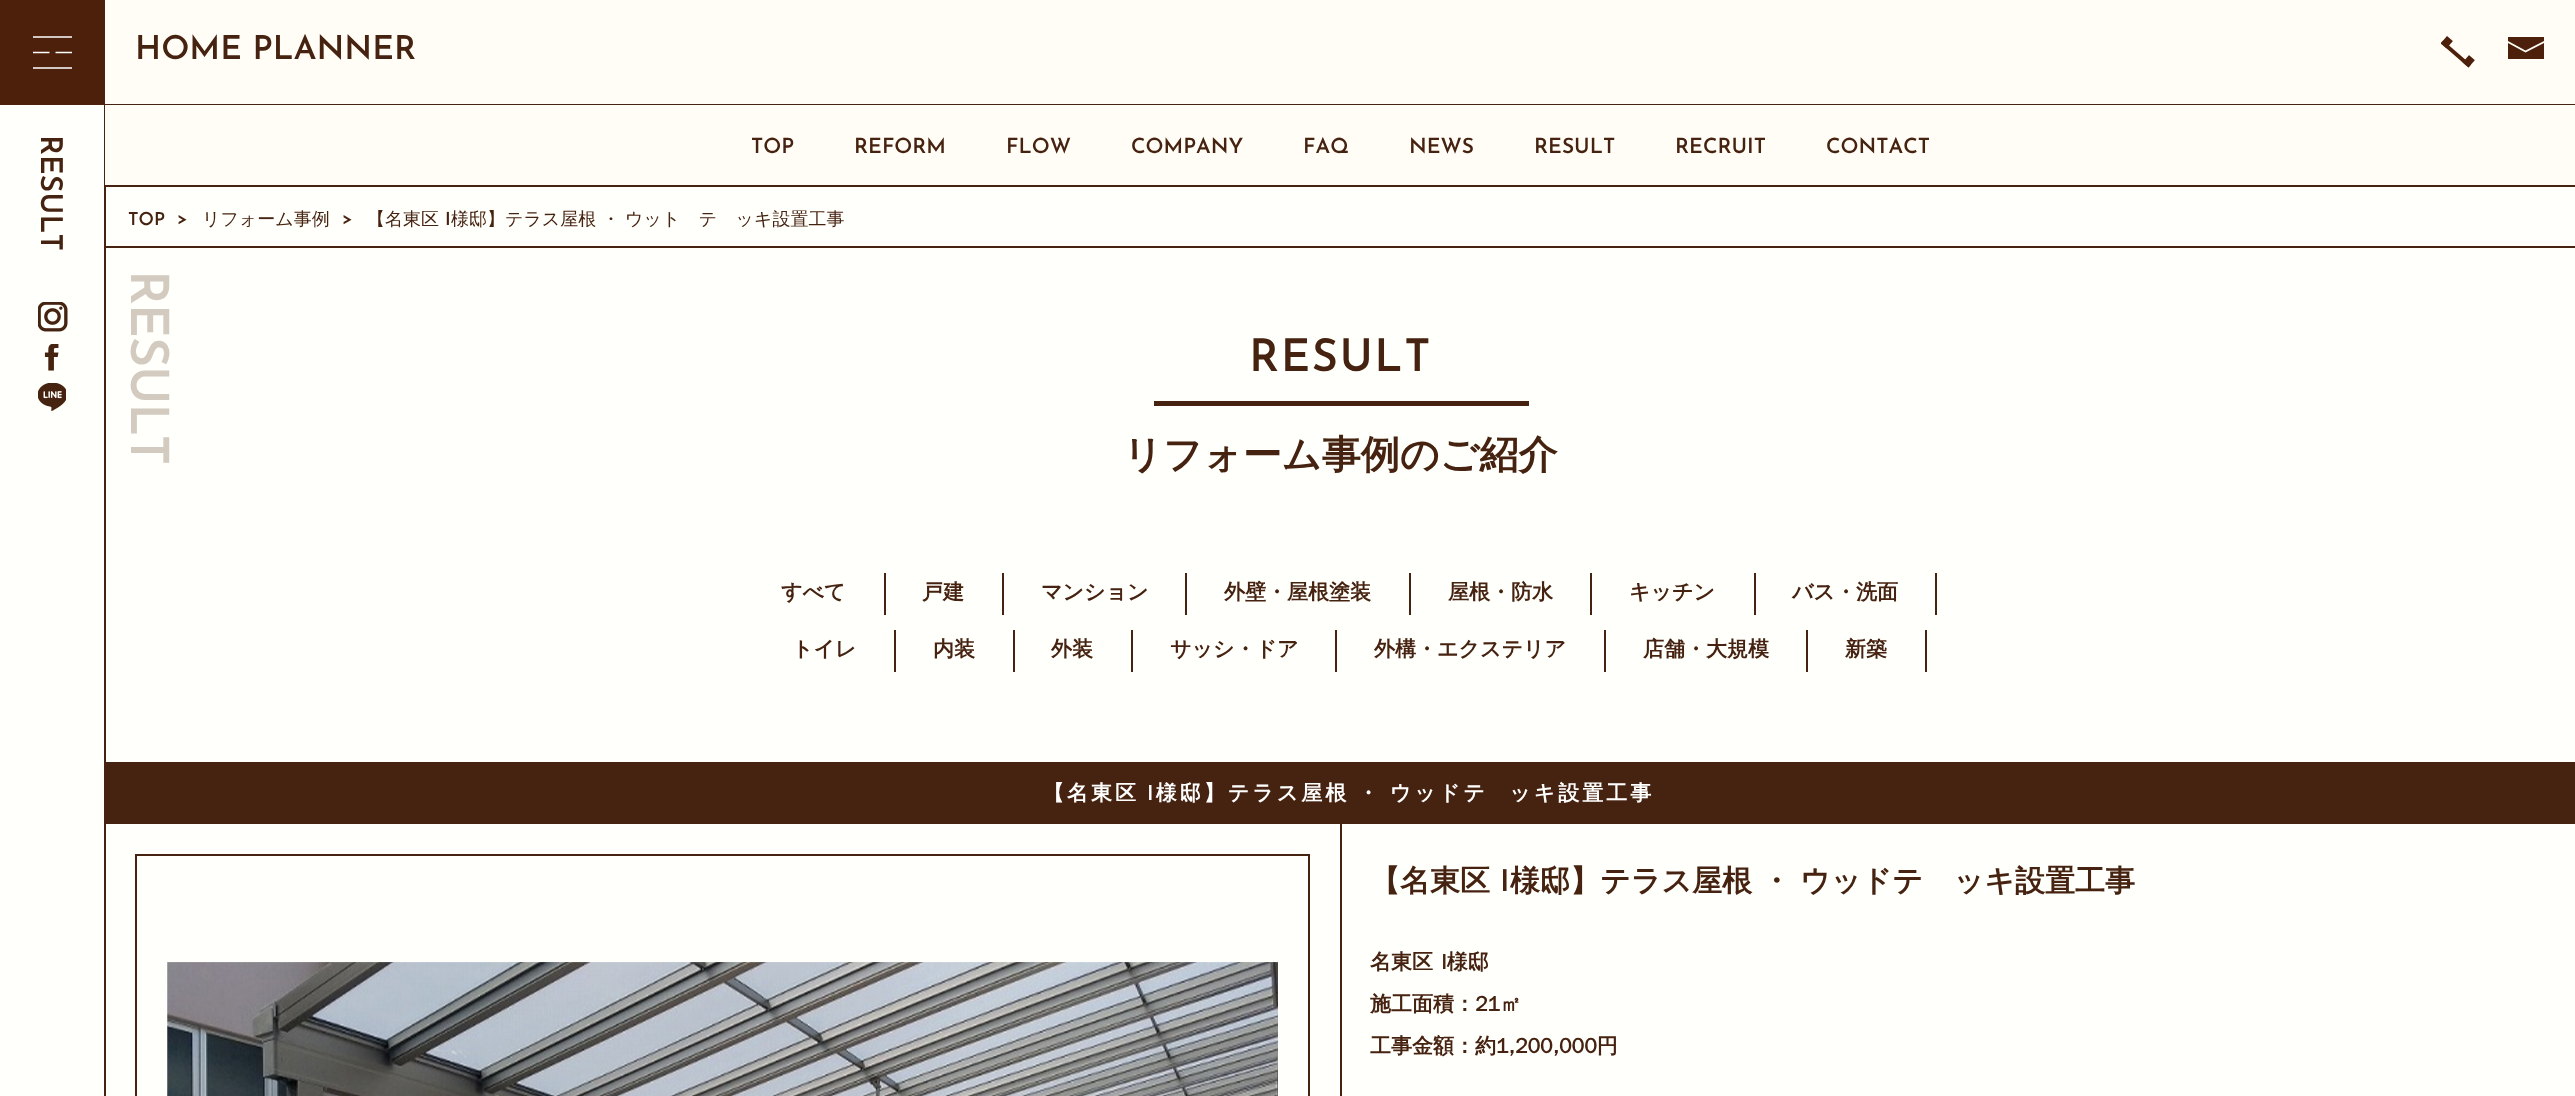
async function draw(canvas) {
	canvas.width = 2575;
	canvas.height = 1096;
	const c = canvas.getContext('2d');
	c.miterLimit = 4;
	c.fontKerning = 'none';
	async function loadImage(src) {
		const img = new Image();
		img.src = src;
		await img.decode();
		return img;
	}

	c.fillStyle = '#fffffb';
	c.fillRect(0, 0, 2575, 1096);
	c.fillStyle = '#4c200b';
	c.fillRect(0, 0, 105, 105);
	c.fillStyle = '#d2c7c2';
	c.fillRect(33, 36, 39, 2);
	c.beginPath();
	c.moveTo(33, 52.5);
	c.lineTo(49.5, 52.5);
	c.moveTo(55.5, 52.5);
	c.lineTo(72, 52.5);
	c.strokeStyle = '#fff';
	c.lineWidth = 1.5;
	c.stroke();
	for (const [x, y, w, h, color] of [
		[33, 67, 39, 2, '#d2c7c2'],
		[105, 0, 2470, 104, '#fffdf5'],
		[105, 104, 2470, 1, '#462210'],
	]) {
		c.fillStyle = color;
		c.fillRect(x, y, w, h);
	}
	c.font = '100 33px Josefin Sans';
	c.fillText('HOME PLANNER', 135, 59);
	c.drawImage(await loadImage('img1.png'), 2441, 36, 34, 32);
	c.save();
	c.beginPath();
	c.rect(2508, 37, 36, 22);
	c.clip();
	c.fillStyle = '#4c200b';
	c.beginPath();
	c.moveTo(2544, 41);
	c.lineTo(2525.5, 50.5);
	c.lineTo(2508, 41);
	c.lineTo(2508, 36.5);
	c.lineTo(2544, 36.5);
	c.closePath();
	c.fill();
	c.beginPath();
	c.moveTo(2544, 43);
	c.lineTo(2525.5, 52.5);
	c.lineTo(2508, 43);
	c.lineTo(2508, 59.5);
	c.lineTo(2544, 59.5);
	c.closePath();
	c.fill();
	c.restore();
	c.fillRect(104, 105, 2, 991);
	c.font = '100 30px Josefin Sans';
	c.save();
	c.translate(41, 135);
	c.rotate(90 * Math.PI / 180);
	c.fillText('RESULT', 0, 0);
	c.restore();
	c.drawImage(await loadImage('img2.png'), 38, 302, 30, 30);
	c.drawImage(await loadImage('img3.png'), 44, 344, 15, 27);
	c.drawImage(await loadImage('img4.png'), 38, 383, 28, 28);
	c.fillStyle = '#fffdf5';
	c.fillRect(105, 105, 2470, 80);
	c.fillStyle = '#462210';
	c.fillRect(105, 185, 2470, 2);
	c.font = '100 21px Josefin Sans';
	for (const [text, x, y] of [
		['TOP', 751, 153],
		['REFORM', 854, 153],
		['FLOW', 1006, 153],
		['COMPANY', 1131, 153],
		['FAQ', 1303, 153],
		['NEWS', 1409, 153],
		['RESULT', 1534, 153],
		['RECRUIT', 1675, 153],
		['CONTACT', 1826, 153],
	]) {
		c.fillText(text, x, y);
	}
	c.fillRect(105, 246, 2470, 2);
	c.font = '100 18px Josefin Sans';
	c.fillText('TOP', 128, 225);
	c.fillText('>', 177, 224);
	c.font = '500 18px WenQuanYi Zen Hei';
	c.fillText('リフォーム事例', 202, 225);
	c.font = '100 18px Josefin Sans';
	c.fillText('>', 342, 224);
	c.font = '500 18px WenQuanYi Zen Hei';
	c.fillText('【名東区', 367, 225);
	c.font = '100 18px Josefin Sans';
	c.fillText('I', 445, 225);
	c.font = '500 18px WenQuanYi Zen Hei';
	c.fillText('様邸】テラス屋根 ・ ウッドデッキ設置工事', 451, 225);
	c.letterSpacing = '-1.5px';
	c.font = '100 52.5px Josefin Sans';
	c.fillStyle = '#d4cbc0';
	c.save();
	c.translate(131, 270);
	c.rotate(90 * Math.PI / 180);
	c.fillText('RESULT', 0, 0);
	c.restore();
	c.letterSpacing = '1.5px';
	c.font = '100 45px Josefin Sans';
	c.fillStyle = '#462210';
	c.fillText('RESULT', 1249, 371);
	c.fillRect(1154, 401, 375, 5);
	c.letterSpacing = '0px';
	c.font = 'bold 39px WenQuanYi Zen Hei';
	c.fillText('リフォーム事例のご紹介', 1123, 468);
	c.fillRect(884, 573, 2, 42);
	c.font = 'bold 21px WenQuanYi Zen Hei';
	c.fillText('すべて', 781, 599);
	c.fillRect(1002, 573, 2, 42);
	c.fillText('戸建', 922, 599);
	c.fillRect(1185, 573, 2, 42);
	c.fillText('マンション', 1041, 599);
	c.fillRect(1409, 573, 2, 42);
	c.fillText('外壁・屋根塗装', 1224, 599);
	c.fillRect(1590, 573, 2, 42);
	c.fillText('屋根・防水', 1448, 599);
	c.fillRect(1754, 573, 2, 42);
	c.fillText('キッチン', 1629, 599);
	c.fillRect(1935, 573, 2, 42);
	c.fillText('バス・洗面', 1792, 599);
	c.fillRect(894, 630, 2, 42);
	c.fillText('トイレ', 792, 656);
	c.fillRect(1013, 630, 2, 42);
	c.fillText('内装', 933, 656);
	c.fillRect(1131, 630, 2, 42);
	c.fillText('外装', 1051, 656);
	c.fillRect(1335, 630, 2, 42);
	c.fillText('サッシ・ドア', 1170, 656);
	c.fillRect(1604, 630, 2, 42);
	c.fillText('外構・エクステリア', 1374, 656);
	c.fillRect(1806, 630, 2, 42);
	c.fillText('店舗・大規模', 1643, 656);
	c.fillRect(1925, 630, 2, 42);
	c.fillText('新築', 1845, 656);
	c.fillRect(106, 762, 2469, 62);
	c.letterSpacing = '3px';
	c.wordSpacing = '-1px';
	c.fillStyle = '#fff';
	c.fillText('【名東区 I様邸】テラス屋根 ・ ウッドデッキ設置工事', 1043, 800);
	c.fillStyle = '#462210';
	c.fillRect(1340, 824, 2, 272);
	c.strokeStyle = '#462210';
	c.lineWidth = 2;
	c.strokeRect(136, 855, 1173, 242);
	c.drawImage(await loadImage('img5.png'), 167, 962, 1111, 134);
	c.letterSpacing = '0px';
	c.wordSpacing = '0px';
	c.font = 'bold 30px WenQuanYi Zen Hei';
	c.fillText('【名東区', 1370, 891);
	c.font = '100 30px Josefin Sans';
	c.fillText('I', 1500, 891);
	c.font = 'bold 30px WenQuanYi Zen Hei';
	c.fillText('様邸】テラス屋根 ・ ウッドデッキ設置工事', 1510, 891);
	c.wordSpacing = '2px';
	c.font = 'bold 21px WenQuanYi Zen Hei';
	c.fillText('名東区 I様邸', 1370, 969);
	c.wordSpacing = '0px';
	c.fillText('施工面積：21㎡', 1370, 1011);
	c.fillText('工事金額：約1,200,000円', 1370, 1053);
}

draw(document.querySelector('canvas'));
